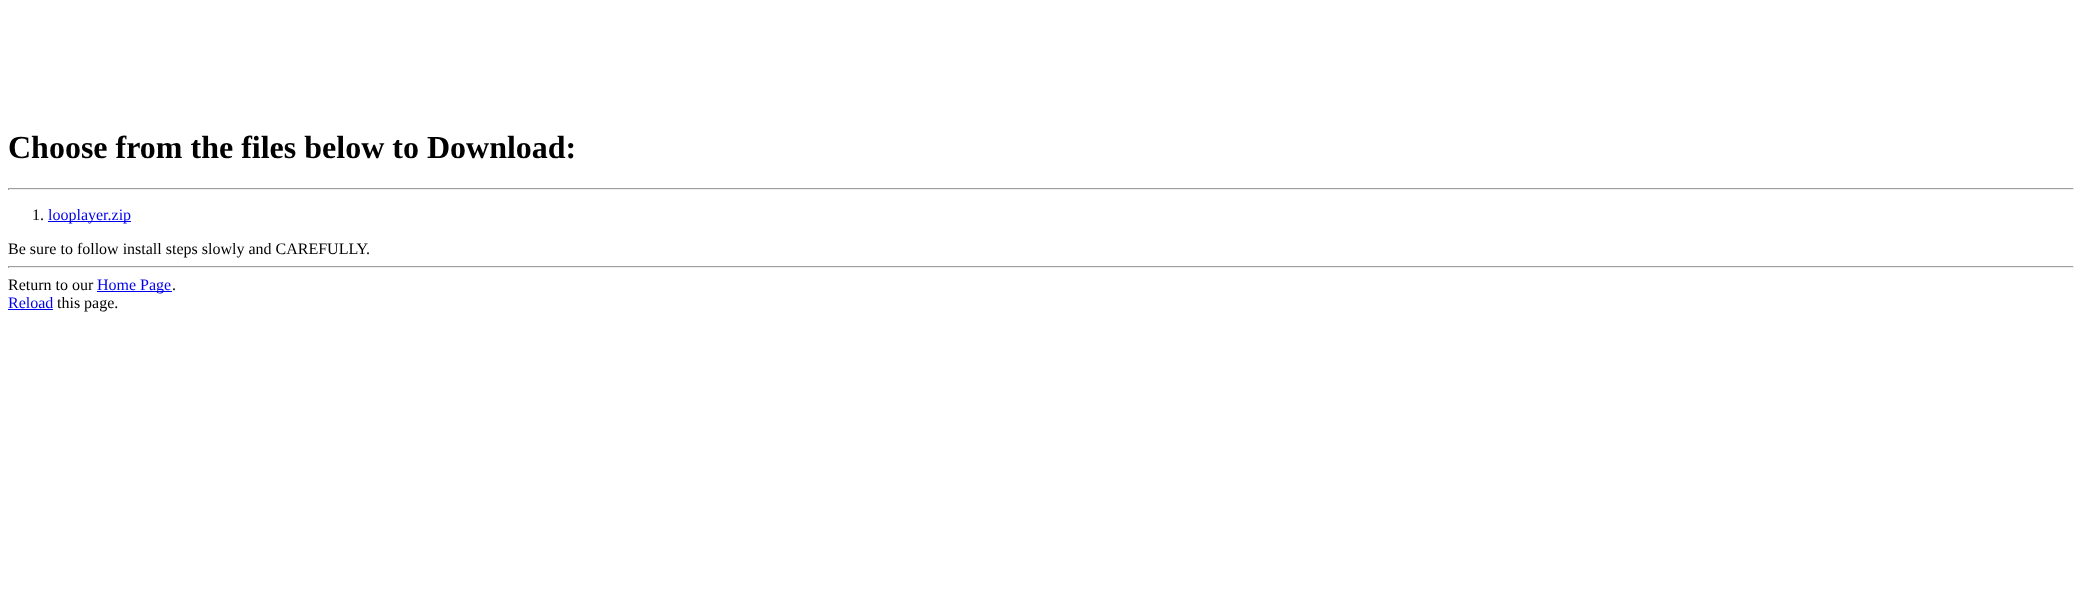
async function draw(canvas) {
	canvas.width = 2082;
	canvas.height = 599;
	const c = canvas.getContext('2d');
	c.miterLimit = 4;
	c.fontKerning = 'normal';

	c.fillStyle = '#fff';
	c.fillRect(0, 0, 2082, 599);
	c.font = 'bold 32px Liberation Serif';
	c.fillStyle = '#000';
	c.fillText('Choose from the files below to Download:', 8, 158);
	for (const [x, y, w, h, color] of [
		[8, 188, 2066, 1, '#9f9f9f'],
		[2073, 188, 1, 2, '#eee'],
		[8, 189, 2066, 1, '#eee'],
		[8, 188, 1, 2, '#9f9f9f'],
	]) {
		c.fillStyle = color;
		c.fillRect(x, y, w, h);
	}
	c.font = '16px Liberation Serif';
	c.fillStyle = '#000';
	c.fillText('1.', 32, 220);
	c.fillStyle = '#00e';
	c.fillRect(48, 221, 83, 1);
	c.fillText('looplayer.zip', 48, 220);
	c.fillStyle = '#000';
	c.fillText('Be sure to follow install steps slowly and CAREFULLY.', 8, 254);
	for (const [x, y, w, h, color] of [
		[8, 266, 2066, 1, '#9f9f9f'],
		[2073, 266, 1, 2, '#eee'],
		[8, 267, 2066, 1, '#eee'],
		[8, 266, 1, 2, '#9f9f9f'],
	]) {
		c.fillStyle = color;
		c.fillRect(x, y, w, h);
	}
	c.fillStyle = '#000';
	c.fillText('Return to our', 8, 290);
	c.fillStyle = '#00e';
	c.fillRect(97, 291, 75, 1);
	c.fillText('Home Page', 97, 290);
	c.fillStyle = '#000';
	c.fillText('.', 172, 290);
	c.fillStyle = '#00e';
	c.fillText('Reload', 8, 308);
	c.fillRect(8, 309, 45, 1);
	c.fillStyle = '#000';
	c.fillText('this page.', 57, 308);
}

draw(document.querySelector('canvas'));
